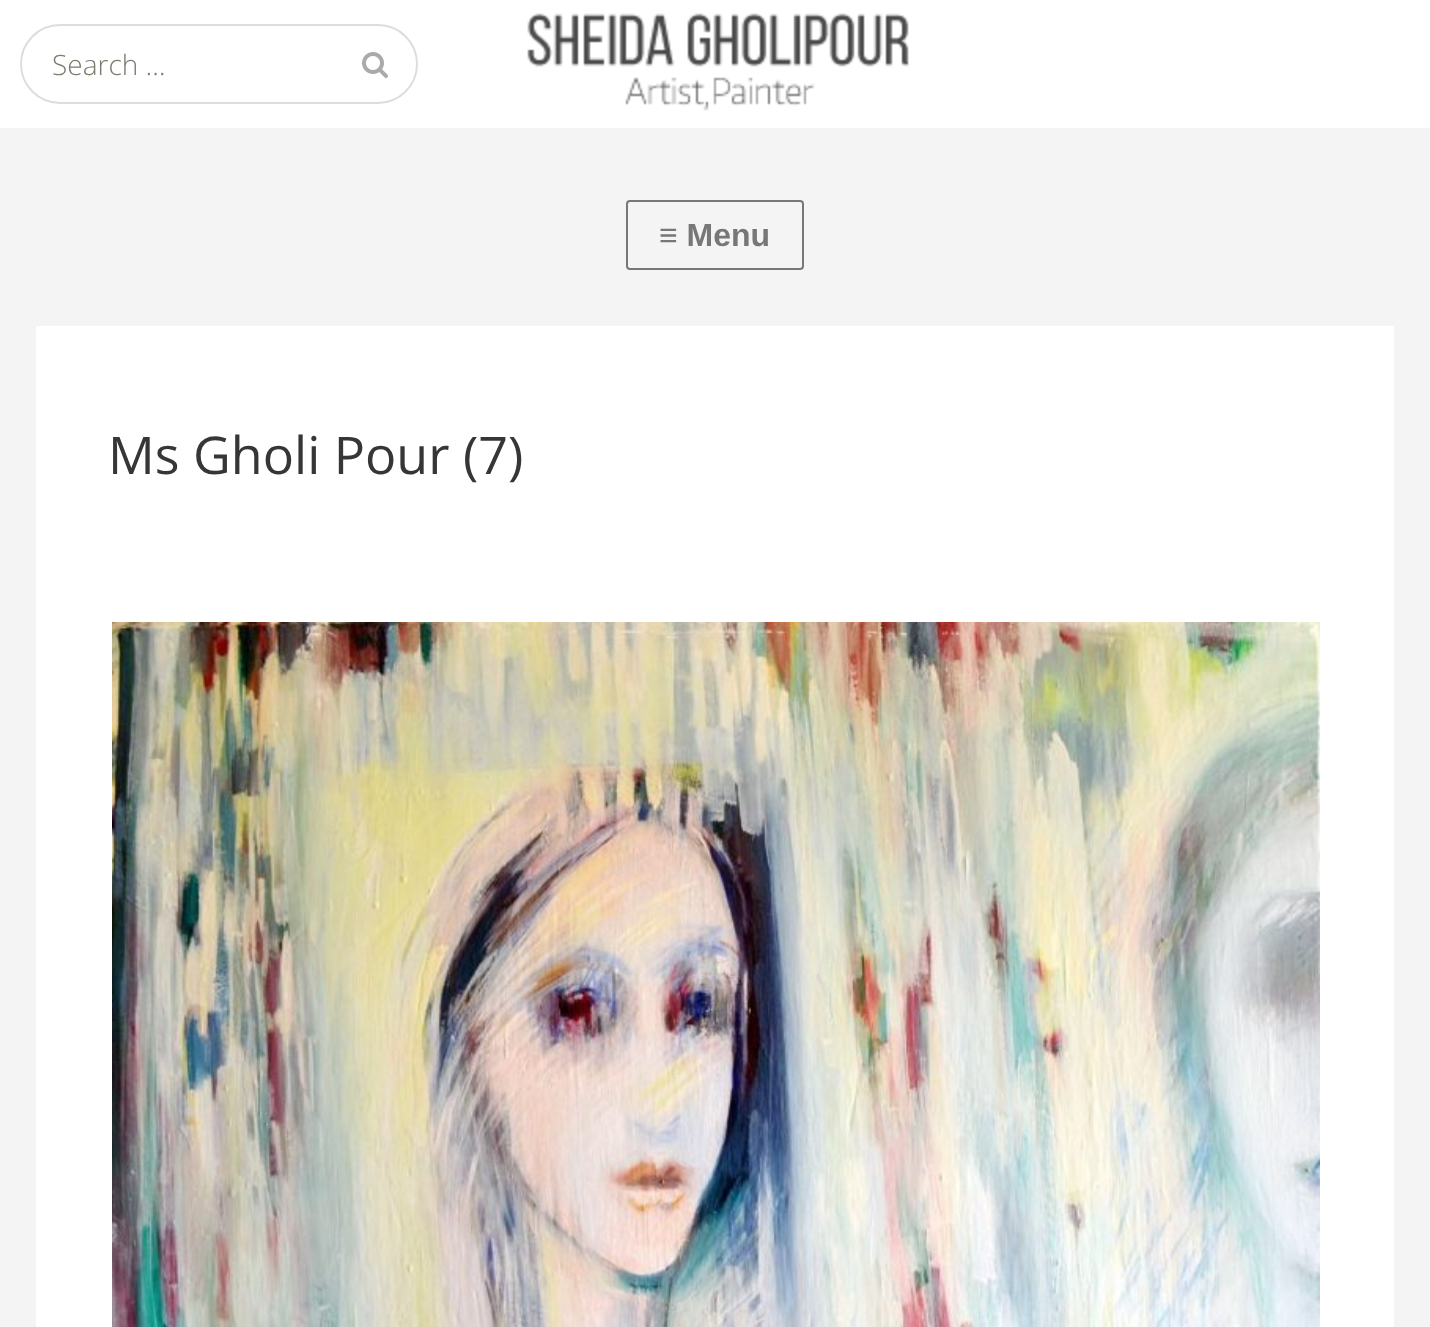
async function draw(canvas) {
	canvas.width = 1430;
	canvas.height = 1327;
	const c = canvas.getContext('2d');
	c.miterLimit = 4;
	c.fontKerning = 'normal';
	async function loadImage(src) {
		const img = new Image();
		img.src = src;
		await img.decode();
		return img;
	}

	c.fillStyle = '#fff';
	c.fillRect(0, 0, 1430, 1327);
	c.beginPath();
	c.roundRect(21, 25, 396, 78, 39);
	c.strokeStyle = '#ddd';
	c.lineWidth = 2;
	c.stroke();
	c.font = '300 28px Open Sans';
	c.fillStyle = '#7d7b6d';
	c.fillText('Search …', 52, 75);
	c.drawImage(await loadImage('img1.png'), 362, 52, 26, 26);
	c.drawImage(await loadImage('img2.png'), 527, 13, 383, 98);
	c.fillStyle = '#f4f4f4';
	c.fillRect(0, 128, 1430, 1199);
	c.beginPath();
	c.roundRect(627, 201, 176, 68, 3);
	c.strokeStyle = '#777';
	c.stroke();
	c.font = 'bold 32px Liberation Sans';
	c.fillStyle = '#777';
	c.fillText('≡ Menu', 659, 246);
	c.fillStyle = '#fff';
	c.fillRect(36, 326, 1358, 1001);
	c.font = '52px Open Sans';
	c.fillStyle = '#363636';
	c.fillText('Ms Gholi Pour (7)', 108, 474);
	c.drawImage(await loadImage('img3.png'), 112, 622, 1208, 705);
}

draw(document.querySelector('canvas'));
